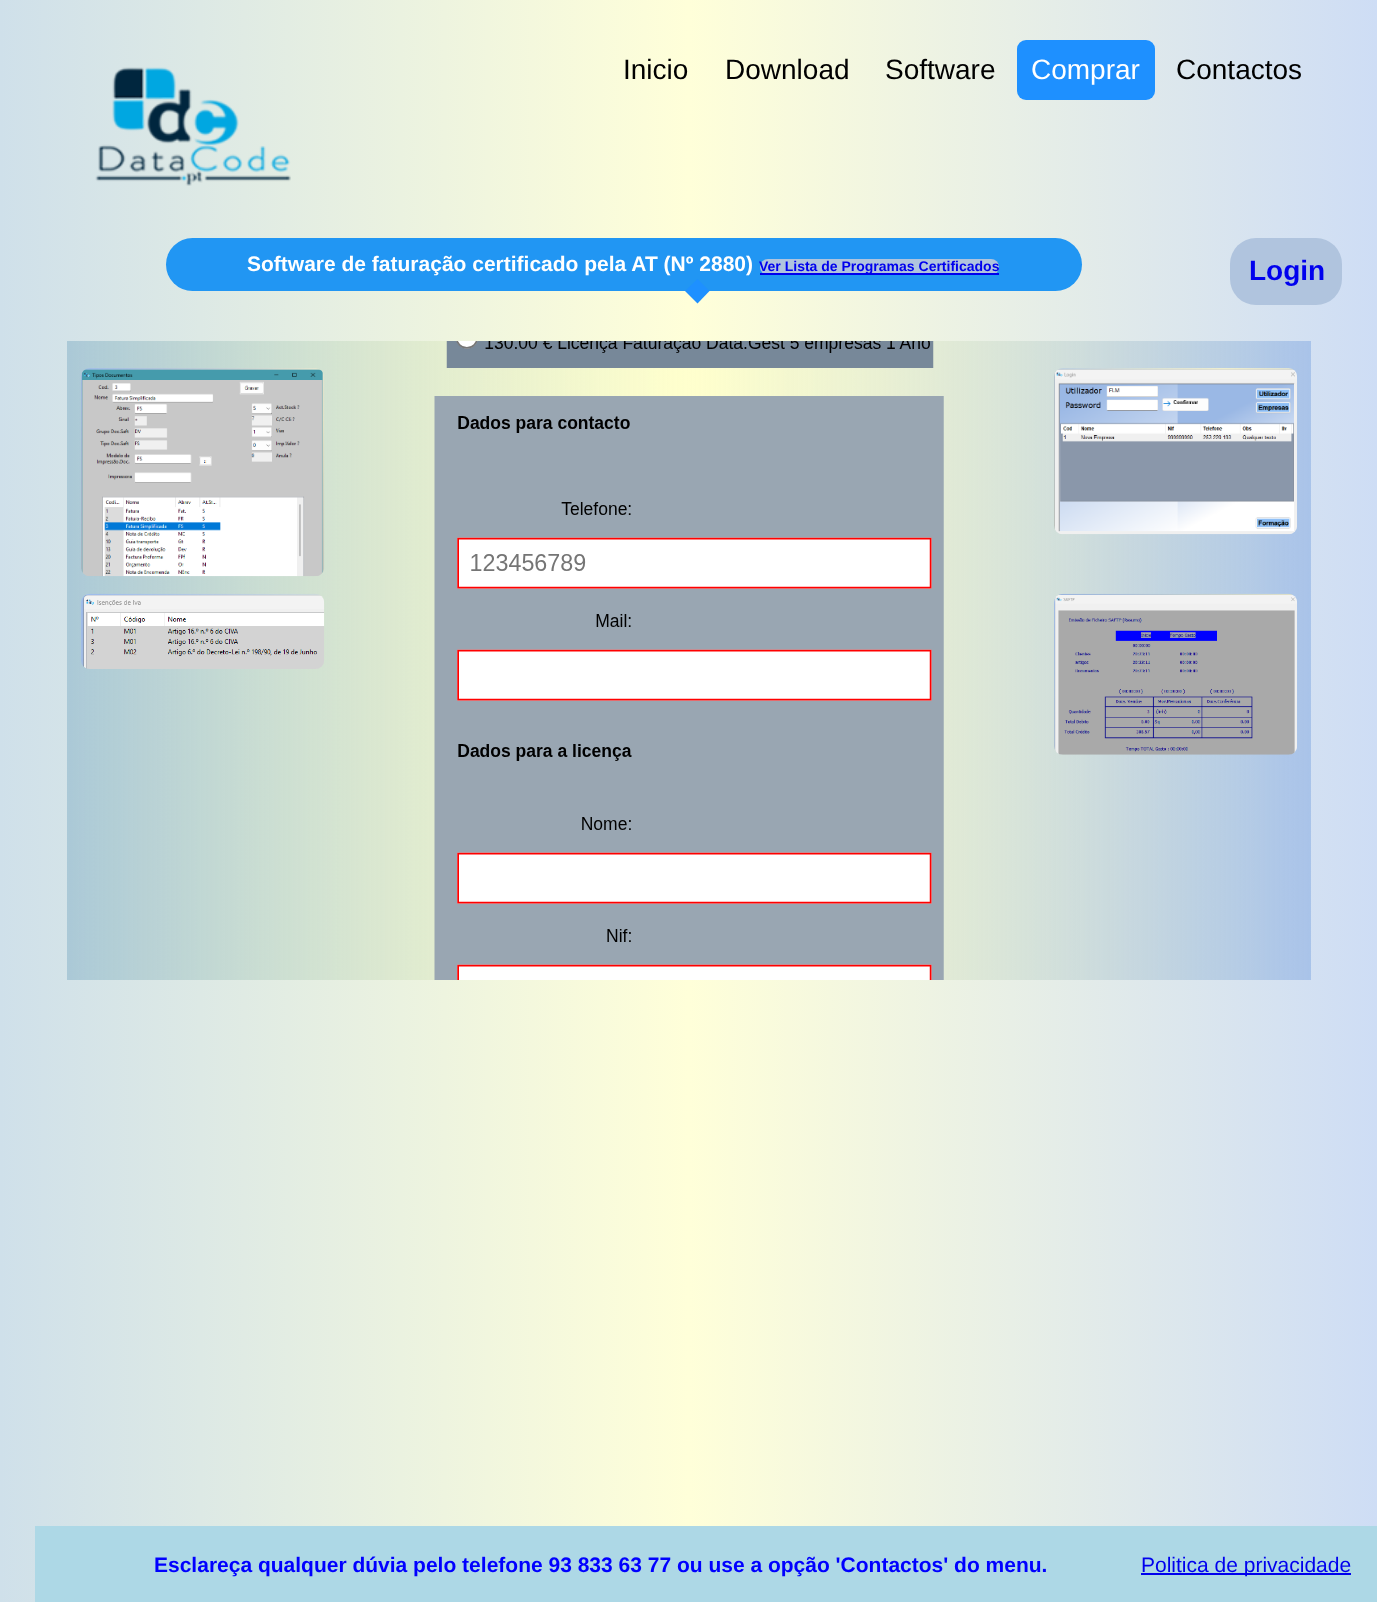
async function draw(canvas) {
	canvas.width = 1377;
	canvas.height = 1602;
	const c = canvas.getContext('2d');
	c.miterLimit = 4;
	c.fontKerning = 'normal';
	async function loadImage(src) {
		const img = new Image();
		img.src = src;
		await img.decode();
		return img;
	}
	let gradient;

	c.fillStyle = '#fff';
	c.fillRect(0, 0, 1377, 1602);
	gradient = c.createLinearGradient(0, 516, 1377, 516);
	gradient.addColorStop(0, '#cfe0ea');
	gradient.addColorStop(0.5, '#ffffd9');
	gradient.addColorStop(1, '#ceddf5');
	c.fillStyle = gradient;
	c.fillRect(0, 0, 1377, 1602);
	c.drawImage(await loadImage('img1.png'), 95, 67, 196, 119);
	c.font = '28px Liberation Sans';
	c.fillStyle = '#000';
	for (const [text, x, y] of [
		['Inicio', 623, 79],
		['Download', 725, 79],
		['Software', 885, 79],
	]) {
		c.fillText(text, x, y);
	}
	c.fillStyle = '#1e90ff';
	c.beginPath();
	c.roundRect(1017, 40, 138, 60, 9);
	c.fill();
	c.fillStyle = '#fff';
	c.fillText('Comprar', 1031, 79);
	c.fillStyle = '#000';
	c.fillText('Contactos', 1176, 79);
	c.fillStyle = '#2196f3';
	c.beginPath();
	c.roundRect(166, 238, 916, 53, 26.5);
	c.fill();
	c.font = 'bold 21px Liberation Sans';
	c.fillStyle = '#fff';
	c.fillText('Software de faturação certificado pela AT (Nº 2880)', 247, 271);
	c.fillStyle = '#b0c4de';
	c.beginPath();
	c.roundRect(760, 259, 239, 16, 8);
	c.fill();
	c.fillStyle = '#00e';
	c.fillRect(760, 273, 239, 2);
	c.font = 'bold 14px Liberation Sans';
	c.fillText('Ver Lista de Programas Certificados', 759, 271);
	c.fillStyle = '#b0c4de';
	c.beginPath();
	c.roundRect(1230, 238, 112, 67, 26);
	c.fill();
	c.font = 'bold 28px Liberation Sans';
	c.fillStyle = '#00e';
	c.fillText('Login', 1249, 280);
	c.fillStyle = '#1e90ff';
	c.beginPath();
	c.moveTo(697.5, 279);
	c.lineTo(709.5, 291);
	c.lineTo(697.5, 303.5);
	c.lineTo(685, 291);
	c.closePath();
	c.fill();
	c.drawImage(await loadImage('img2.png'), 67, 341, 1244, 639);
	c.fillStyle = '#add8e6';
	c.fillRect(35, 1526, 1342, 76);
	c.font = 'bold 21px Liberation Sans';
	c.fillStyle = '#00f';
	c.fillText('Esclareça qualquer dúvia pelo telefone 93 833 63 77 ou use a opção \'Contactos\' do menu.', 154, 1572);
	c.fillStyle = '#00e';
	c.fillRect(1141, 1573, 210, 2);
	c.font = '21px Liberation Sans';
	c.fillText('Politica de privacidade', 1141, 1572);
}

draw(document.querySelector('canvas'));
